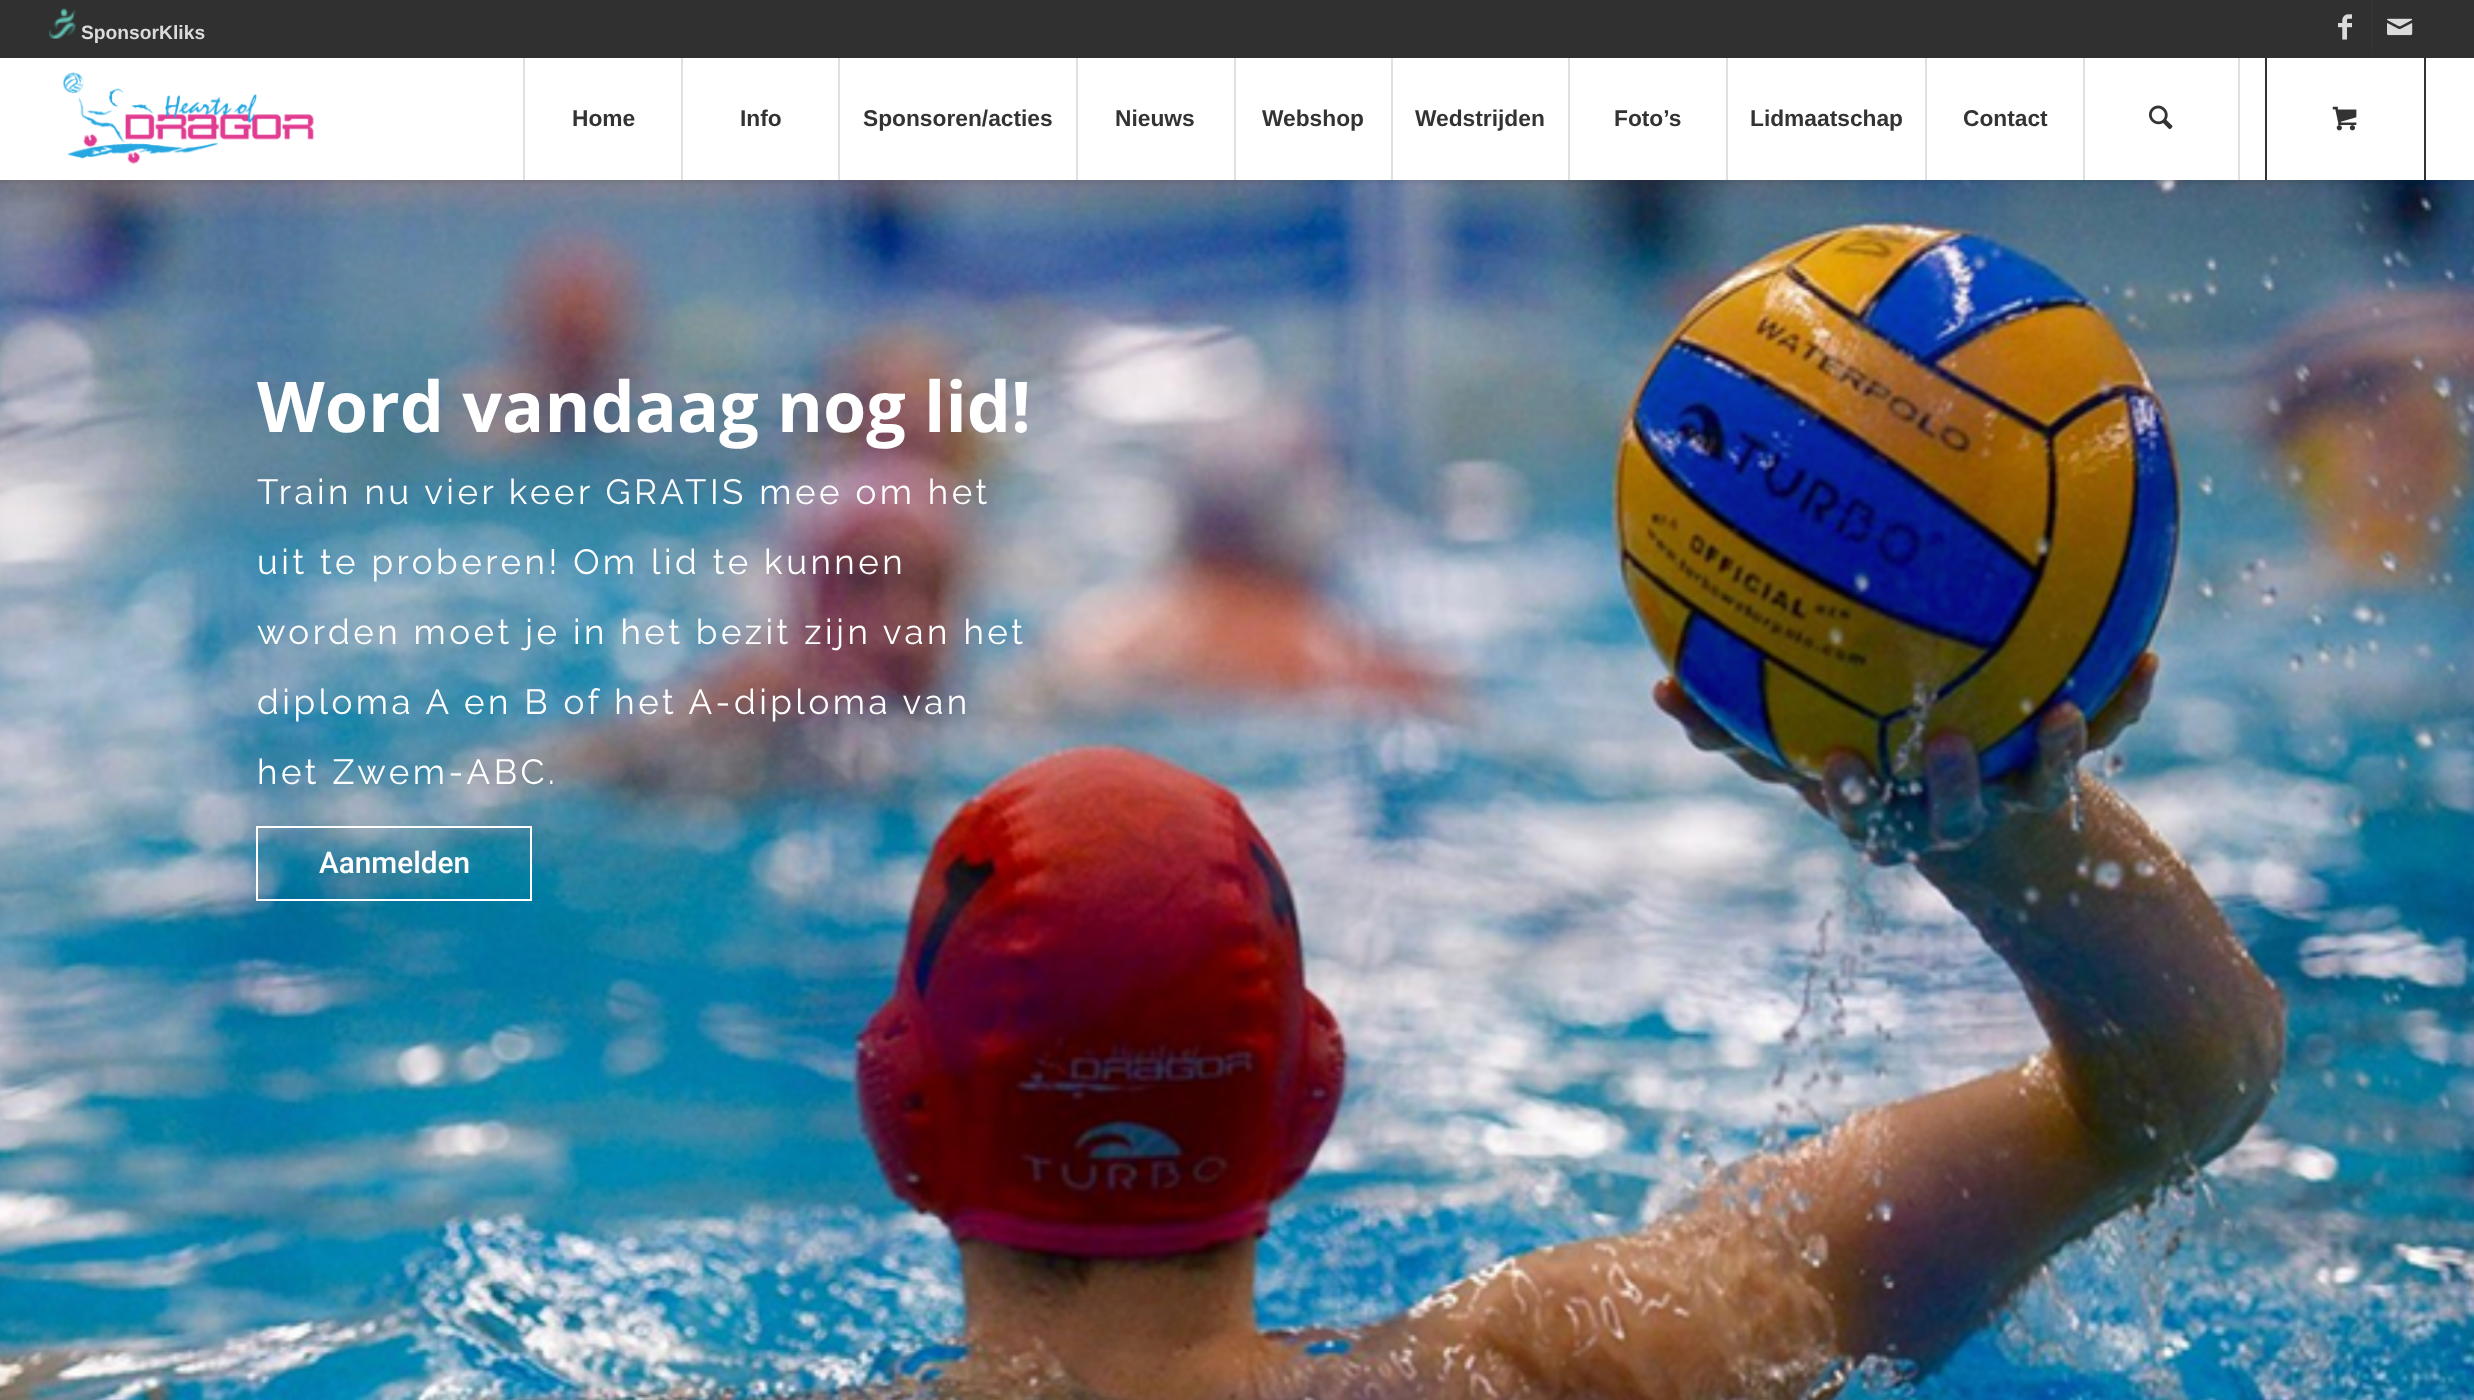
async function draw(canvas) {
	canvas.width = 2474;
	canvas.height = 1400;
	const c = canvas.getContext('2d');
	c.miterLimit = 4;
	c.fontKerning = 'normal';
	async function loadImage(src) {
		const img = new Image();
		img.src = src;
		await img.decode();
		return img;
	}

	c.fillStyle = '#fff';
	c.fillRect(0, 0, 2474, 1400);
	c.drawImage(await loadImage('img7.png'), 0, 180, 2474, 1220);
	c.fillStyle = '#0000001a';
	c.filter = 'blur(2px)';
	c.beginPath();
	c.rect(-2, -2, 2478, 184);
	c.fill();
	c.filter = 'none';
	c.fillStyle = '#303030';
	c.fillRect(0, 0, 2474, 58);
	c.drawImage(await loadImage('img1.png'), 49, 8, 27, 31);
	c.font = 'bold 19.25px Liberation Sans';
	c.fillStyle = '#dbdbdb';
	c.fillText('SponsorKliks', 81, 39);
	c.fillStyle = '#333';
	c.fillRect(2371, 0, 2, 53);
	c.drawImage(await loadImage('img2.png'), 2338, 14, 14, 26);
	c.drawImage(await loadImage('img3.png'), 2387, 18, 26, 18);
	c.fillStyle = '#fff';
	c.fillRect(0, 58, 2474, 122);
	c.drawImage(await loadImage('img4.png'), 63, 72, 251, 93);
	c.fillStyle = '#e0e0e0';
	c.fillRect(523, 58, 2, 122);
	c.font = 'bold 22.75px Liberation Sans';
	c.fillStyle = '#333';
	c.fillText('Home', 572, 126);
	c.fillStyle = '#e0e0e0';
	c.fillRect(681, 58, 2, 122);
	c.fillStyle = '#333';
	c.fillText('Info', 740, 126);
	c.fillStyle = '#e0e0e0';
	c.fillRect(838, 58, 2, 122);
	c.fillStyle = '#333';
	c.fillText('Sponsoren/acties', 863, 126);
	c.fillStyle = '#e0e0e0';
	c.fillRect(1076, 58, 2, 122);
	c.fillStyle = '#333';
	c.fillText('Nieuws', 1115, 126);
	c.fillStyle = '#e0e0e0';
	c.fillRect(1234, 58, 2, 122);
	c.fillStyle = '#333';
	c.fillText('Webshop', 1262, 126);
	c.fillStyle = '#e0e0e0';
	c.fillRect(1391, 58, 2, 122);
	c.fillStyle = '#333';
	c.fillText('Wedstrijden', 1415, 126);
	c.fillStyle = '#e0e0e0';
	c.fillRect(1568, 58, 2, 122);
	c.fillStyle = '#333';
	c.fillText('Foto’s', 1614, 126);
	c.fillStyle = '#e0e0e0';
	c.fillRect(1726, 58, 2, 122);
	c.fillStyle = '#333';
	c.fillText('Lidmaatschap', 1750, 126);
	c.fillStyle = '#e0e0e0';
	c.fillRect(1925, 58, 2, 122);
	c.fillStyle = '#333';
	c.fillText('Contact', 1963, 126);
	c.fillStyle = '#e0e0e0';
	c.fillRect(2238, 58, 2, 122);
	c.fillRect(2083, 58, 2, 122);
	c.drawImage(await loadImage('img5.png'), 2149, 105, 24, 25);
	c.fillStyle = '#333';
	c.fillRect(2424, 58, 2, 122);
	c.fillRect(2265, 58, 2, 122);
	c.drawImage(await loadImage('img6.png'), 2332, 106, 25, 25);
	c.font = 'bold 70px Open Sans';
	c.fillStyle = '#fff';
	c.fillText('Word vandaag nog lid!', 257, 432);
	c.letterSpacing = '3.5px';
	c.font = '100 35px Raleway';
	for (const [text, x, y] of [
		['Train nu vier keer GRATIS mee om het', 257, 504],
		['uit te proberen! Om lid te kunnen', 257, 574],
		['worden moet je in het bezit zijn van het', 257, 644],
		['diploma A en B of het A-diploma van', 257, 714],
		['het Zwem-ABC.', 257, 784],
	]) {
		c.fillText(text, x, y);
	}
	c.strokeStyle = '#fff';
	c.lineWidth = 2;
	c.strokeRect(257, 827, 274, 73);
	c.letterSpacing = '0px';
	c.font = '500 29.75px Roboto';
	c.fillText('Aanmelden', 319, 873);
}

draw(document.querySelector('canvas'));
